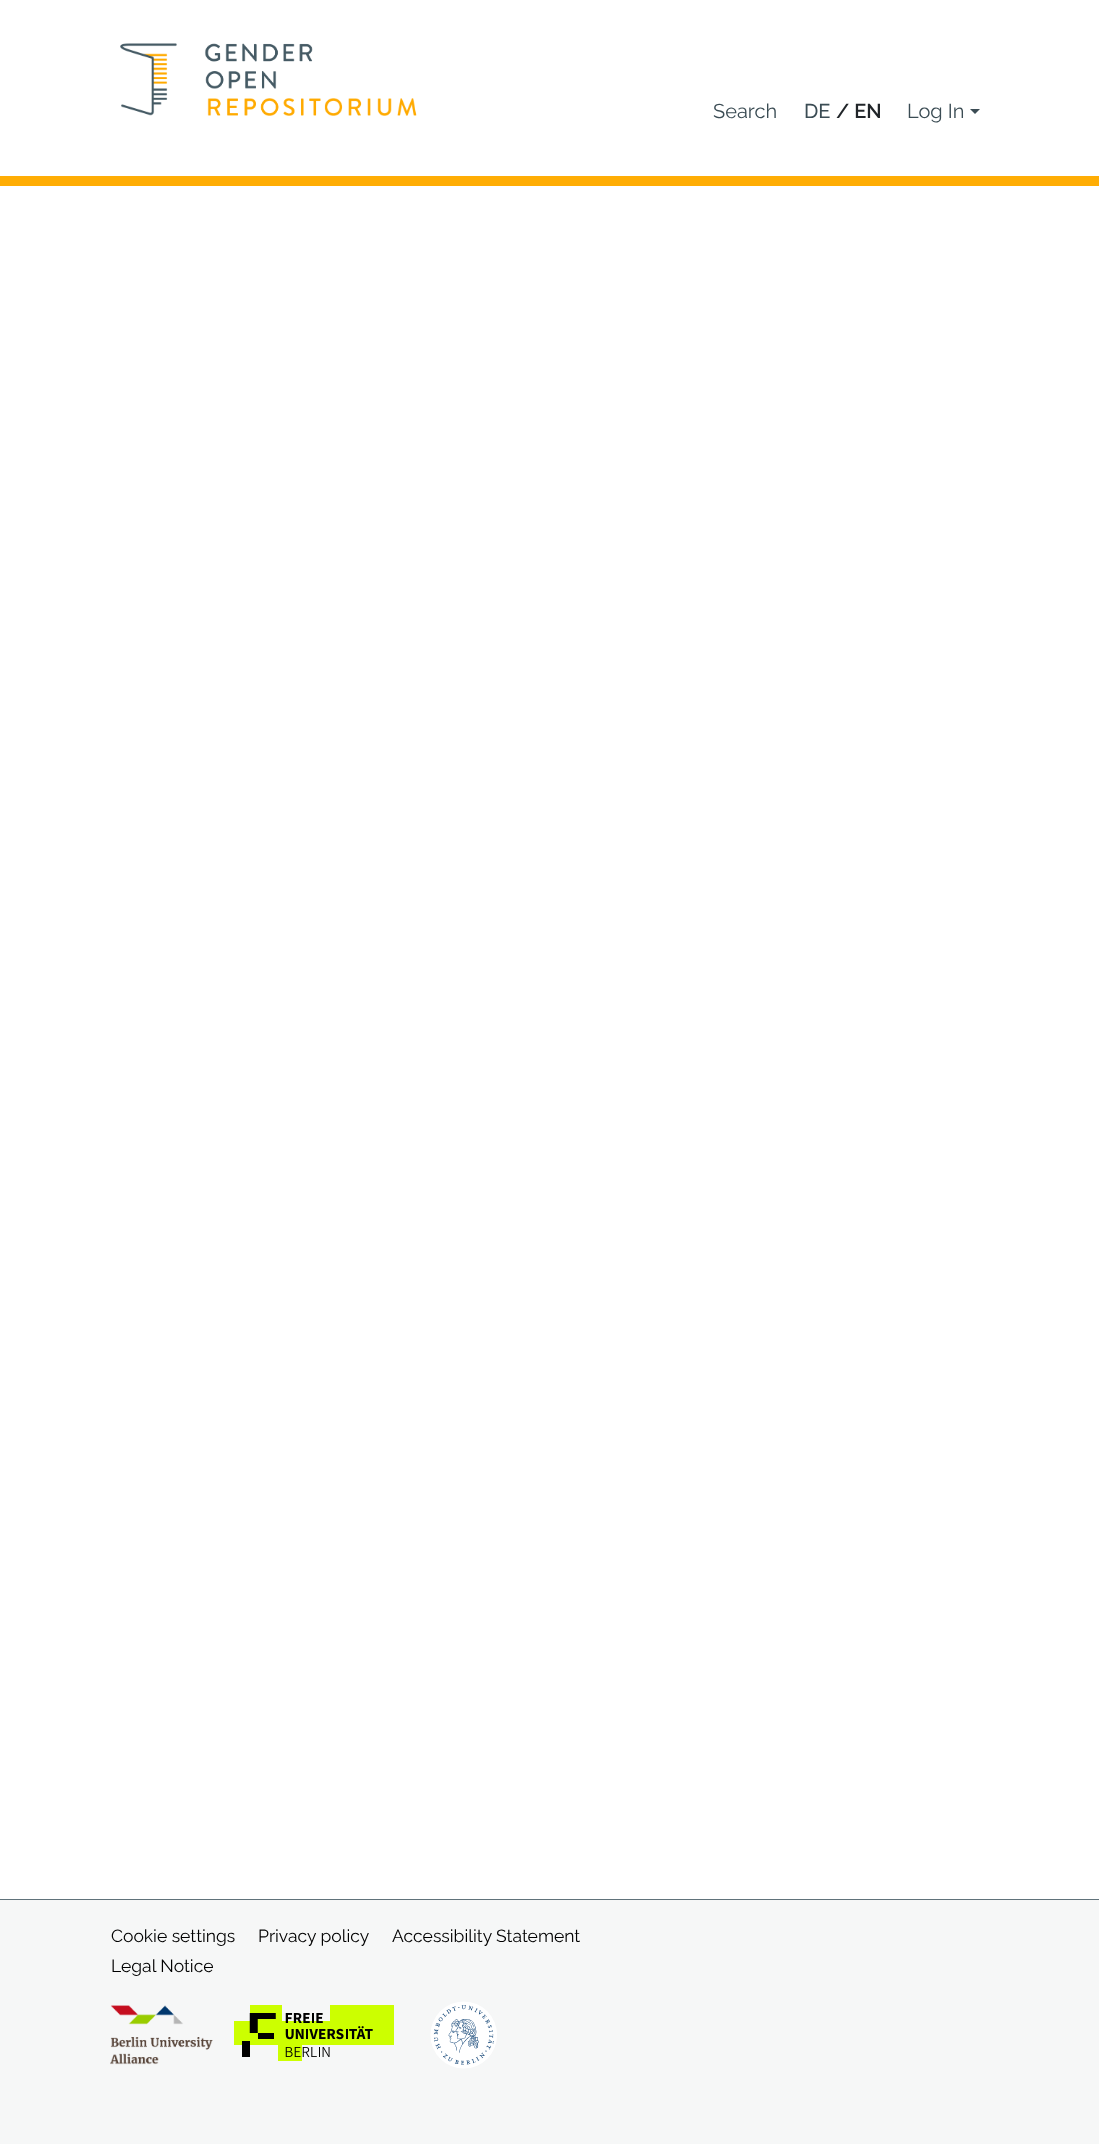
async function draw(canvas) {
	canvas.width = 1099;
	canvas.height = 2144;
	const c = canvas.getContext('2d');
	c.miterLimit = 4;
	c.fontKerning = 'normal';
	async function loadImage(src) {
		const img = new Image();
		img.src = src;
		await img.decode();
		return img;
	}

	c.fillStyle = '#fff';
	c.fillRect(0, 0, 1099, 2144);
	c.fillStyle = '#ffad04';
	c.fillRect(0, 176, 1099, 10);
	c.drawImage(await loadImage('img1.png'), 120, 43, 297, 73);
	c.font = '20px Raleway';
	c.fillStyle = '#3b4c54';
	c.fillText('Search', 713, 118);
	c.font = '500 20px Raleway';
	c.fillText('DE', 804, 118);
	c.font = '600 20px Raleway';
	c.fillStyle = '#212529';
	c.fillText('/ EN', 836, 118);
	c.font = '20px Raleway';
	c.fillStyle = '#3b4c54';
	c.fillText('Log In', 907, 118);
	c.beginPath();
	c.moveTo(970, 109);
	c.lineTo(980, 109);
	c.lineTo(975, 114);
	c.closePath();
	c.fill();
	c.fillStyle = '#f6f7f7';
	c.fillRect(0, 1900, 1099, 244);
	c.fillStyle = '#60727a';
	c.fillRect(0, 1899, 1099, 1);
	c.font = '17.5px Raleway';
	c.fillStyle = '#000';
	for (const [text, x, y] of [
		['Cookie settings', 111, 1942],
		['Privacy policy', 258, 1942],
		['Accessibility Statement', 392, 1942],
		['Legal Notice', 111, 1972],
	]) {
		c.fillText(text, x, y);
	}
	c.drawImage(await loadImage('img2.png'), 110, 2005, 103, 60);
	c.drawImage(await loadImage('img3.png'), 234, 2005, 160, 56);
	c.drawImage(await loadImage('img4.png'), 430, 2001, 67, 68);
}

draw(document.querySelector('canvas'));
